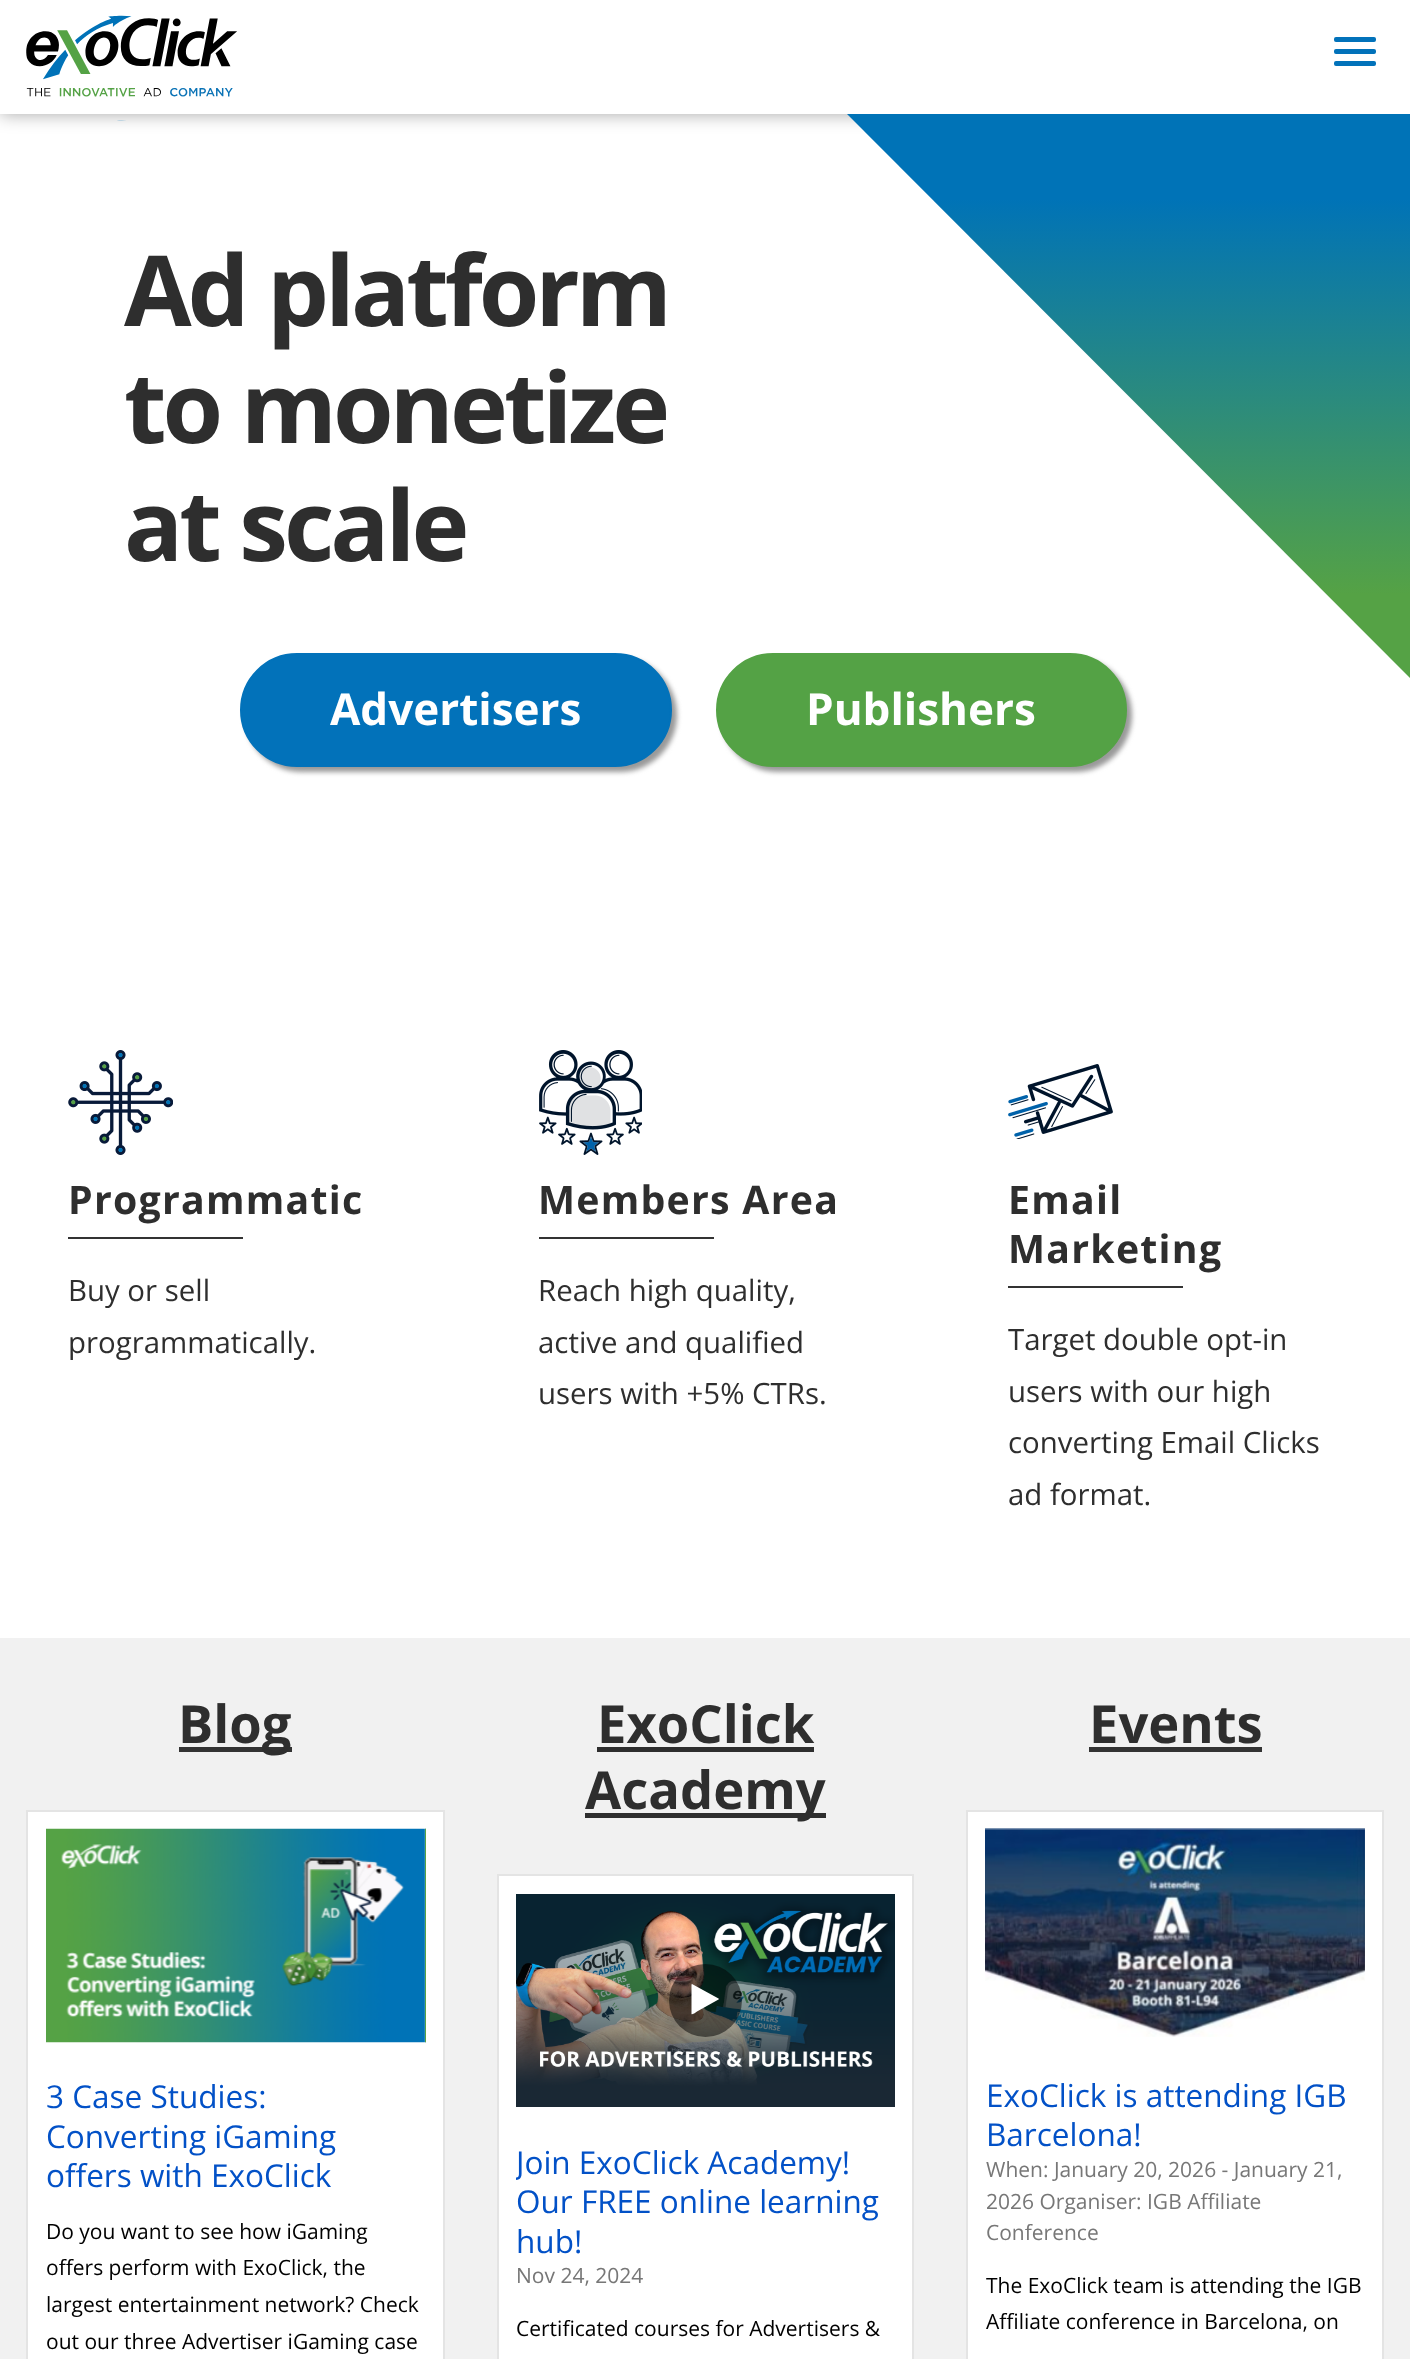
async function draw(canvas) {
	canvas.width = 1410;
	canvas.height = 2359;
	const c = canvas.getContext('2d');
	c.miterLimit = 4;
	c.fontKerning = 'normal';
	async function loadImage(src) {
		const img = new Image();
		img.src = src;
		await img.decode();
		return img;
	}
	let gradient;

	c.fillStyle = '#fff';
	c.fillRect(0, 0, 1410, 2359);
	c.fillStyle = '#00000059';
	c.filter = 'blur(9px)';
	c.beginPath();
	c.rect(0, 0, 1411, 114);
	c.fill();
	c.filter = 'none';
	c.fillStyle = '#fff';
	c.fillRect(0, 0, 1410, 114);
	c.drawImage(await loadImage('img1.png'), 26, 15, 211, 106);
	c.fillStyle = '#0272ba';
	c.beginPath();
	c.roundRect(1334, 37, 42, 5, 2);
	c.fill();
	c.beginPath();
	c.roundRect(1334, 49, 42, 5, 2);
	c.fill();
	c.beginPath();
	c.roundRect(1334, 61, 42, 5, 2);
	c.fill();
	gradient = c.createLinearGradient(1129, 114, 1129, 679);
	gradient.addColorStop(0, '#0073b7');
	gradient.addColorStop(0.15, '#0073b7');
	gradient.addColorStop(0.85, '#55a245');
	gradient.addColorStop(1, '#55a245');
	c.fillStyle = gradient;
	c.beginPath();
	c.moveTo(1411, 679);
	c.lineTo(847, 114);
	c.lineTo(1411, 114);
	c.closePath();
	c.fill();
	c.letterSpacing = '-4px';
	c.font = 'bold 98px Open Sans';
	c.fillStyle = '#2e2e2e';
	for (const [text, x, y] of [
		['Ad platform', 124, 326],
		['to monetize', 124, 443],
		['at scale', 124, 561],
	]) {
		c.fillText(text, x, y);
	}
	c.fillStyle = '#999';
	c.filter = 'blur(2.5px)';
	c.beginPath();
	c.roundRect(245, 658, 432, 114, 57);
	c.fill();
	c.filter = 'none';
	c.fillStyle = '#0272ba';
	c.beginPath();
	c.roundRect(241, 654, 430, 112, 56);
	c.fill();
	c.strokeStyle = '#0272ba';
	c.lineWidth = 2;
	c.stroke();
	c.letterSpacing = '0px';
	c.font = 'bold 44px Open Sans';
	c.fillStyle = '#fff';
	c.fillText('Advertisers', 330, 725);
	c.fillStyle = '#999';
	c.filter = 'blur(2.5px)';
	c.beginPath();
	c.roundRect(721, 658, 411, 114, 57);
	c.fill();
	c.filter = 'none';
	c.fillStyle = '#54a245';
	c.beginPath();
	c.roundRect(717, 654, 409, 112, 56);
	c.fill();
	c.strokeStyle = '#54a245';
	c.stroke();
	c.fillStyle = '#fff';
	c.fillText('Publishers', 806, 725);
	c.drawImage(await loadImage('img2.png'), 68, 1050, 105, 105);
	c.letterSpacing = '1.25px';
	c.font = 'bold 39.25px Open Sans';
	c.fillStyle = '#2e2e2e';
	c.fillText('Programmatic', 68, 1214);
	c.fillStyle = '#333';
	c.fillRect(68, 1237, 175, 2);
	c.letterSpacing = '0px';
	c.font = '29.4px Open Sans';
	c.fillStyle = '#2e2e2e';
	c.fillText('Buy or sell', 68, 1301);
	c.fillText('programmatically.', 68, 1353);
	c.drawImage(await loadImage('img3.png'), 539, 1050, 103, 105);
	c.letterSpacing = '1.25px';
	c.font = 'bold 39.25px Open Sans';
	c.fillText('Members Area', 538, 1214);
	c.fillStyle = '#333';
	c.fillRect(539, 1237, 175, 2);
	c.letterSpacing = '0px';
	c.font = '29.4px Open Sans';
	c.fillStyle = '#2e2e2e';
	for (const [text, x, y] of [
		['Reach high quality,', 538, 1301],
		['active and qualified', 538, 1353],
		['users with +5% CTRs.', 538, 1404],
	]) {
		c.fillText(text, x, y);
	}
	c.drawImage(await loadImage('img4.png'), 1008, 1064, 105, 75);
	c.letterSpacing = '1.25px';
	c.font = 'bold 39.25px Open Sans';
	c.fillText('Email', 1008, 1214);
	c.fillText('Marketing', 1008, 1263);
	c.fillStyle = '#333';
	c.fillRect(1008, 1286, 175, 2);
	c.letterSpacing = '0px';
	c.font = '29.4px Open Sans';
	c.fillStyle = '#2e2e2e';
	for (const [text, x, y] of [
		['Target double opt-in', 1008, 1350],
		['users with our high', 1008, 1402],
		['converting Email Clicks', 1008, 1453],
		['ad format.', 1008, 1505],
	]) {
		c.fillText(text, x, y);
	}
	c.fillStyle = '#f1f1f1';
	c.fillRect(0, 1638, 1410, 721);
	c.fillStyle = '#333';
	c.fillRect(179, 1747, 113, 5);
	c.font = 'bold 52.5px Open Sans';
	c.fillStyle = '#2e2e2e';
	c.fillText('Blog', 178, 1743);
	c.fillStyle = '#fff';
	c.beginPath();
	c.rect(27, 1811, 417, 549);
	c.fill();
	c.strokeStyle = '#e4e4e4';
	c.stroke();
	c.drawImage(await loadImage('img6.png'), 46, 1828, 380, 215);
	c.drawImage(await loadImage('img5.png'), 425, 1828, 1, 215);
	c.font = '31.5px Open Sans';
	c.fillStyle = '#0251c7';
	for (const [text, x, y] of [
		['3 Case Studies:', 46, 2108],
		['Converting iGaming', 46, 2148],
		['offers with ExoClick', 46, 2187],
	]) {
		c.fillText(text, x, y);
	}
	c.font = '21px Open Sans';
	c.fillStyle = '#000';
	for (const [text, x, y] of [
		['Do you want to see how iGaming', 46, 2239],
		['offers perform with ExoClick, the', 46, 2275],
		['largest entertainment network? Check', 46, 2312],
		['out our three Advertiser iGaming case', 46, 2349],
	]) {
		c.fillText(text, x, y);
	}
	c.font = 'bold 52.5px Open Sans';
	c.fillStyle = '#2e2e2e';
	c.fillText('ExoClick', 597, 1743);
	c.fillRect(597, 1747, 217, 5);
	c.fillRect(585, 1813, 241, 5);
	c.fillText('Academy', 585, 1809);
	c.fillStyle = '#fff';
	c.beginPath();
	c.rect(498, 1875, 415, 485);
	c.fill();
	c.stroke();
	c.drawImage(await loadImage('img7.png'), 516, 1894, 379, 213);
	c.fillStyle = '#00000080';
	c.beginPath();
	c.arc(705.5, 2000.5, 36.5, 0, 2 * Math.PI);
	c.fill();
	c.fillStyle = '#fff';
	c.beginPath();
	c.moveTo(718.5, 1999.5);
	c.lineTo(697, 2011.5);
	c.bezierCurveTo(696.5, 2012, 692.5, 2015, 691.5, 2014);
	c.lineTo(691.5, 1984.5);
	c.lineTo(692, 1984);
	c.lineTo(718.5, 1998.5);
	c.lineTo(719, 1999);
	c.closePath();
	c.fill();
	c.save();
	c.beginPath();
	c.rect(516, 1894, 378, 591);
	c.clip();
	c.font = '31.5px Open Sans';
	c.fillStyle = '#0251c7';
	c.fillText('Join ExoClick Academy!', 516, 2174);
	c.restore();
	c.font = '31.5px Open Sans';
	c.fillStyle = '#0251c7';
	c.fillText('Our FREE online learning', 516, 2213);
	c.fillText('hub!', 516, 2253);
	c.font = '21px Open Sans';
	c.fillStyle = '#777';
	c.fillText('Nov 24, 2024', 516, 2283);
	c.fillStyle = '#000';
	c.fillText('Certificated courses for Advertisers &', 516, 2336);
	c.font = 'bold 52.5px Open Sans';
	c.fillStyle = '#2e2e2e';
	c.fillText('Events', 1089, 1743);
	c.fillStyle = '#333';
	c.fillRect(1089, 1747, 173, 5);
	c.fillStyle = '#fff';
	c.beginPath();
	c.rect(967, 1811, 416, 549);
	c.fill();
	c.stroke();
	c.drawImage(await loadImage('img8.png'), 985, 1828, 380, 209);
	c.font = '31.5px Open Sans';
	c.fillStyle = '#0251c7';
	c.fillText('ExoClick is attending IGB', 986, 2107);
	c.fillText('Barcelona!', 986, 2146);
	c.font = '21px Open Sans';
	c.fillStyle = '#777';
	for (const [text, x, y] of [
		['When: January 20, 2026 - January 21,', 986, 2177],
		['2026 Organiser: IGB Affiliate', 986, 2209],
		['Conference', 986, 2240],
	]) {
		c.fillText(text, x, y);
	}
	c.fillStyle = '#000';
	c.fillText('The ExoClick team is attending the IGB', 986, 2293);
	c.fillText('Affiliate conference in Barcelona, on', 986, 2329);
}

draw(document.querySelector('canvas'));
